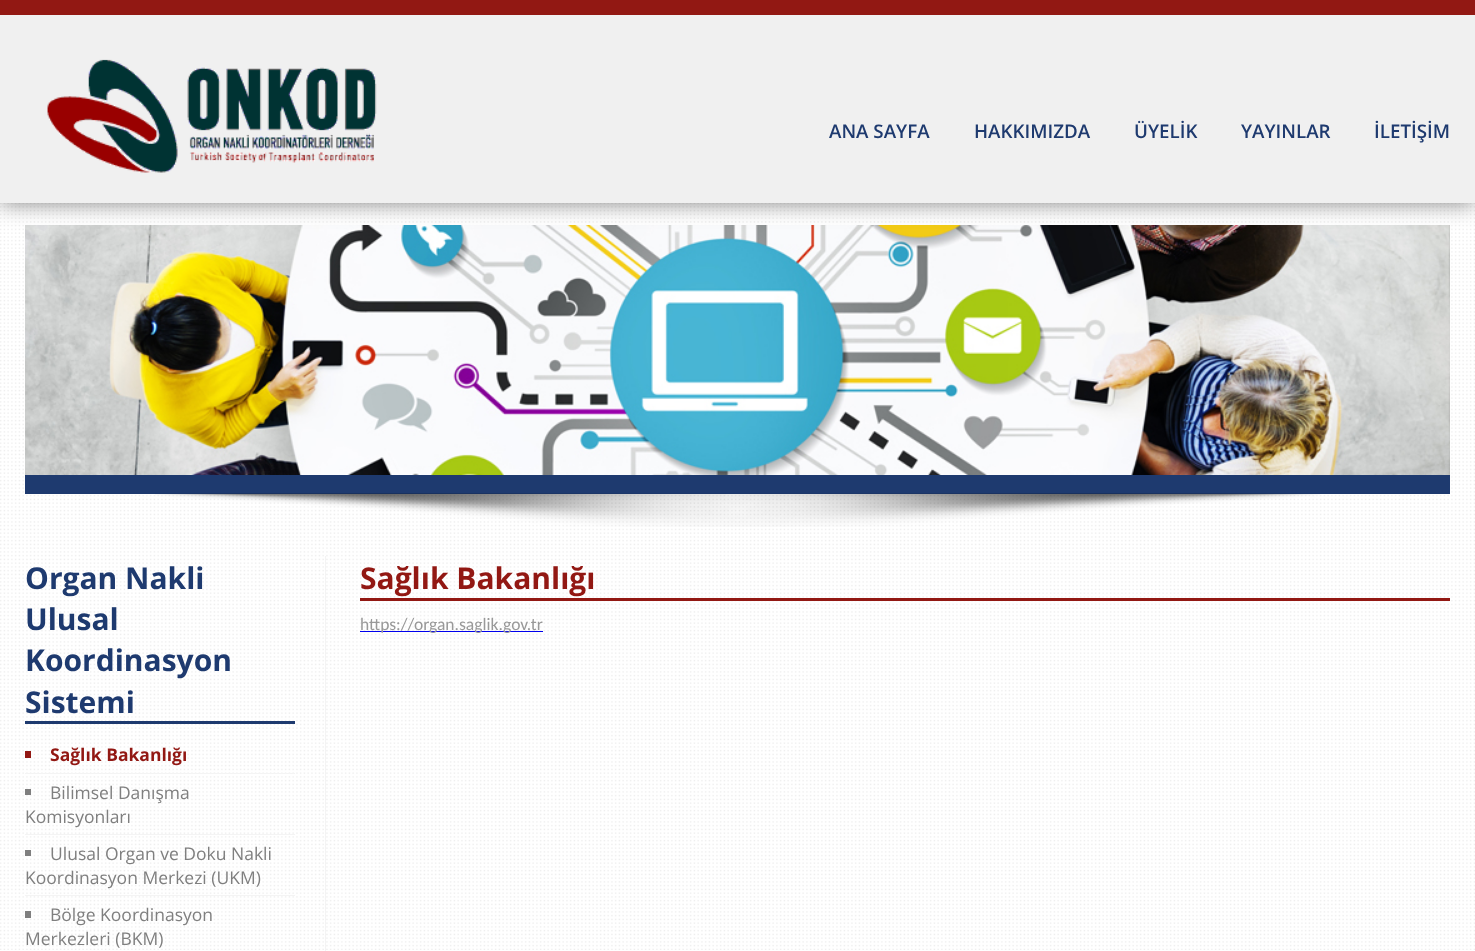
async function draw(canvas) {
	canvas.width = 1475;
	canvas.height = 951;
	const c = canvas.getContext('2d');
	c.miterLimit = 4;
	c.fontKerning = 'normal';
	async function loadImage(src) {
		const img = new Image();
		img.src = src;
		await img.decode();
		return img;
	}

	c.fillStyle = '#fff';
	c.fillRect(0, 0, 1475, 951);
	c.drawImage(await loadImage('img1.png'), 0, 203, 1475, 747);
	c.drawImage(await loadImage('img3.png'), 25, 225, 1425, 250);
	c.fillStyle = '#3232329c';
	c.filter = 'blur(11px)';
	c.beginPath();
	c.rect(0, 0, 1475, 203);
	c.fill();
	c.filter = 'none';
	c.fillStyle = '#f0f0f0';
	c.fillRect(0, 15, 1475, 188);
	c.fillStyle = '#921813';
	c.fillRect(0, 0, 1475, 15);
	c.drawImage(await loadImage('img2.png'), 47, 59, 330, 114);
	c.font = '600 18.75px Open Sans';
	c.fillStyle = '#1e3a6f';
	for (const [text, x, y] of [
		['ANA SAYFA', 829, 138],
		['HAKKIMIZDA', 974, 138],
		['ÜYELİK', 1134, 138],
		['YAYINLAR', 1241, 138],
		['İLETİŞİM', 1374, 138],
	]) {
		c.fillText(text, x, y);
	}
	c.fillRect(25, 475, 1425, 19);
	c.drawImage(await loadImage('img4.png'), 155, 493, 1165, 34);
	c.fillStyle = '#f4f4f4';
	c.fillRect(325, 556, 1, 395);
	c.fillStyle = '#1e3a6f';
	c.fillRect(25, 721, 270, 3);
	c.font = 'bold 30px Open Sans';
	for (const [text, x, y] of [
		['Organ Nakli', 25, 589],
		['Ulusal', 25, 630],
		['Koordinasyon', 25, 671],
		['Sistemi', 25, 713],
	]) {
		c.fillText(text, x, y);
	}
	c.fillStyle = '#f4f4f4';
	c.fillRect(25, 773, 270, 1);
	c.fillStyle = '#921813';
	c.fillRect(25, 751, 6, 7);
	c.font = 'bold 17.5px Open Sans';
	c.fillText('Sağlık Bakanlığı', 50, 761);
	c.fillStyle = '#f4f4f4';
	c.fillRect(25, 834, 270, 1);
	c.fillStyle = '#7f7f7f';
	c.fillRect(25, 789, 6, 6);
	c.font = '17.5px Open Sans';
	c.fillText('Bilimsel Danışma', 50, 799);
	c.fillText('Komisyonları', 25, 823);
	c.fillStyle = '#f4f4f4';
	c.fillRect(25, 895, 270, 1);
	c.fillStyle = '#7f7f7f';
	c.fillRect(25, 850, 6, 6);
	c.fillText('Ulusal Organ ve Doku Nakli', 50, 860);
	c.fillText('Koordinasyon Merkezi (UKM)', 25, 884);
	c.fillRect(25, 911, 6, 7);
	c.fillText('Bölge Koordinasyon', 50, 921);
	c.fillText('Merkezleri (BKM)', 25, 945);
	c.fillStyle = '#921813';
	c.fillRect(360, 598, 1090, 3);
	c.font = 'bold 30px Open Sans';
	c.fillText('Sağlık Bakanlığı', 360, 589);
	c.fillStyle = '#00e';
	c.fillRect(360, 631, 183, 1);
	c.font = '17.5px Carlito';
	c.fillStyle = '#999';
	c.fillText('https://organ.saglik.gov.tr', 360, 630);
}

draw(document.querySelector('canvas'));
